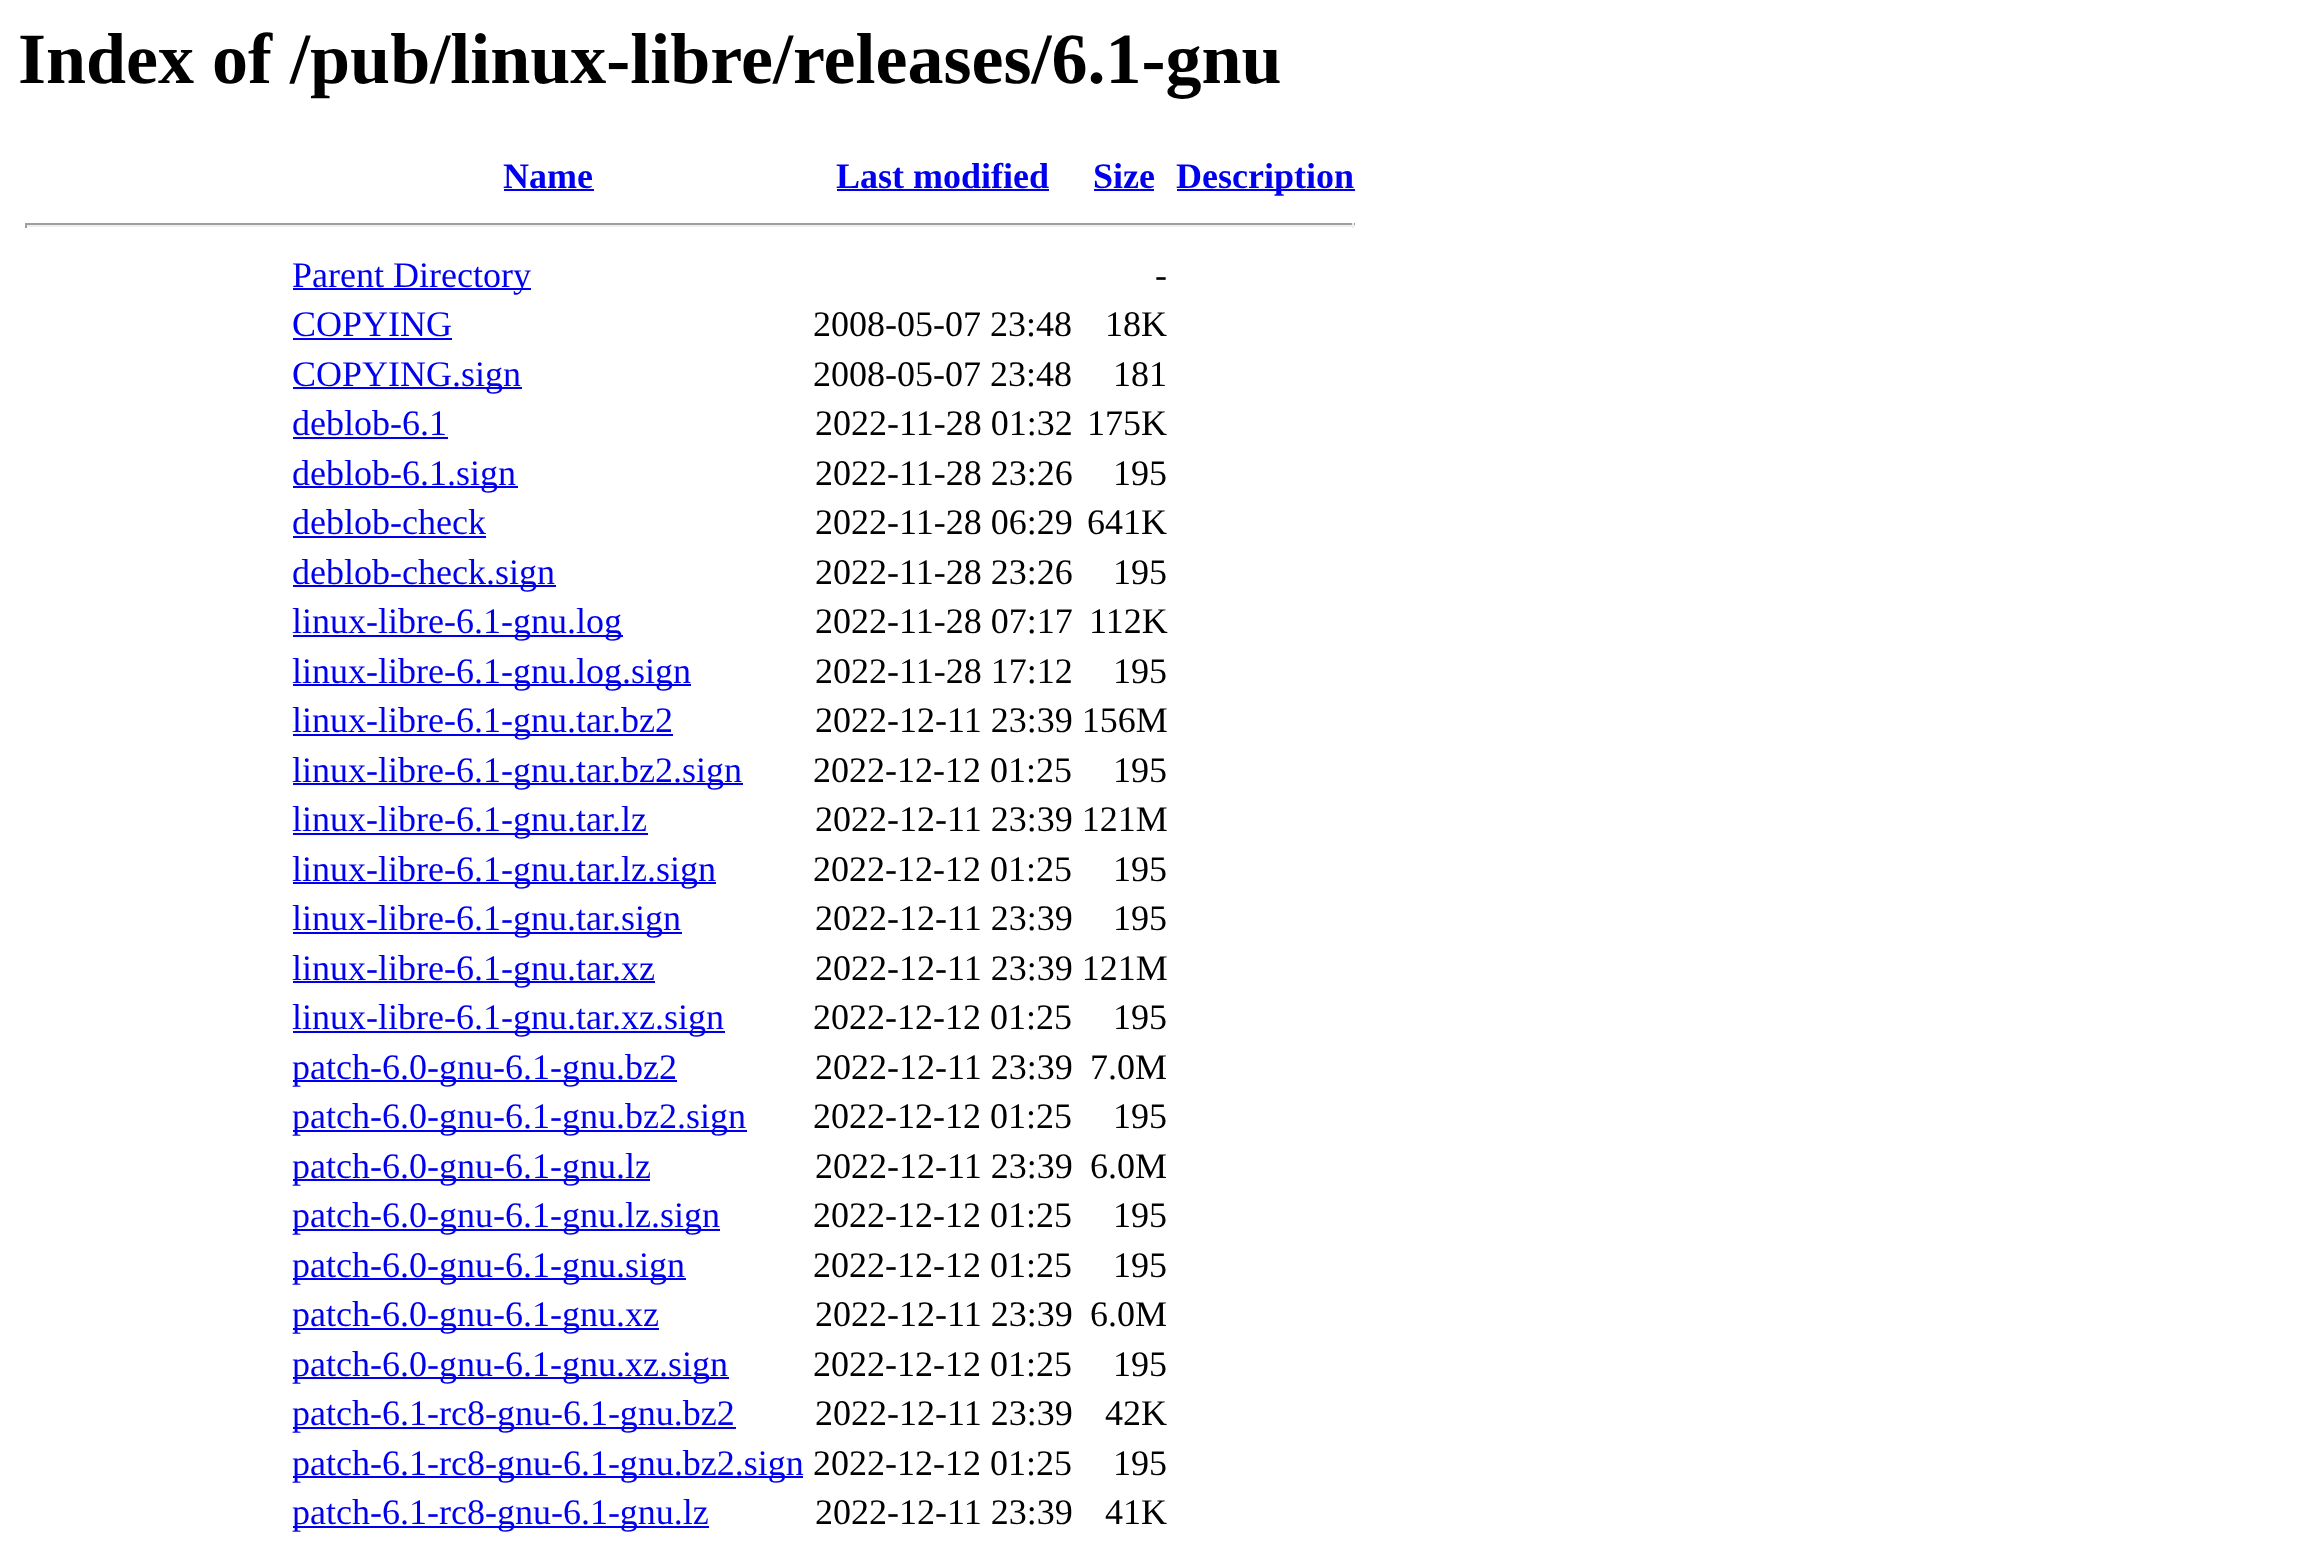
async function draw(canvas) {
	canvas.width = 2315;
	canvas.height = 1546;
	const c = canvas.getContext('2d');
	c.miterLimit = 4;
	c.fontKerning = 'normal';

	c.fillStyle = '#fff';
	c.fillRect(0, 0, 2315, 1546);
	c.font = 'bold 72px Liberation Serif';
	c.fillStyle = '#000';
	c.fillText('Index of /pub/linux-libre/releases/6.1-gnu', 18, 83);
	c.font = 'bold 36px Liberation Serif';
	c.fillStyle = '#00e';
	c.fillText('Name', 503, 188);
	c.fillRect(504, 189, 90, 2);
	c.fillText('Last modified', 836, 188);
	c.fillRect(837, 189, 212, 2);
	c.fillText('Size', 1093, 188);
	c.fillRect(1094, 189, 60, 2);
	c.fillRect(1177, 189, 178, 2);
	c.fillText('Description', 1176, 188);
	for (const [x, y, w, h, color] of [
		[25, 223, 1330, 2, '#9f9f9f'],
		[1352, 223, 2, 5, '#eee'],
		[25, 225, 1330, 2, '#eee'],
		[25, 223, 2, 5, '#9f9f9f'],
		[293, 288, 238, 2, '#00e'],
	]) {
		c.fillStyle = color;
		c.fillRect(x, y, w, h);
	}
	c.font = '36px Liberation Serif';
	c.fillText('Parent Directory', 292, 287);
	c.fillStyle = '#000';
	c.fillText('-', 1155, 287);
	c.fillStyle = '#00e';
	c.fillText('COPYING', 292, 336);
	c.fillRect(293, 338, 159, 2);
	c.fillStyle = '#000';
	c.fillText('2008-05-07 23:48', 813, 336);
	c.fillText('18K', 1105, 336);
	c.fillStyle = '#00e';
	c.fillRect(293, 387, 229, 2);
	c.fillText('COPYING.sign', 292, 386);
	c.fillStyle = '#000';
	c.fillText('2008-05-07 23:48', 813, 386);
	c.fillText('181', 1113, 386);
	c.fillStyle = '#00e';
	c.fillText('deblob-6.1', 292, 435);
	c.fillRect(293, 437, 155, 2);
	c.fillStyle = '#000';
	c.fillText('2022-11-28 01:32', 815, 435);
	c.fillText('175K', 1087, 435);
	c.fillStyle = '#00e';
	c.fillRect(293, 486, 225, 2);
	c.fillText('deblob-6.1.sign', 292, 485);
	c.fillStyle = '#000';
	c.fillText('2022-11-28 23:26', 815, 485);
	c.fillText('195', 1113, 485);
	c.fillStyle = '#00e';
	c.fillText('deblob-check', 292, 534);
	c.fillRect(293, 536, 193, 2);
	c.fillStyle = '#000';
	c.fillText('2022-11-28 06:29', 815, 534);
	c.fillText('641K', 1087, 534);
	c.fillStyle = '#00e';
	c.fillRect(293, 585, 263, 2);
	c.fillText('deblob-check.sign', 292, 584);
	c.fillStyle = '#000';
	c.fillText('2022-11-28 23:26', 815, 584);
	c.fillText('195', 1113, 584);
	c.fillStyle = '#00e';
	c.fillRect(293, 635, 330, 2);
	c.fillText('linux-libre-6.1-gnu.log', 292, 633);
	c.fillStyle = '#000';
	c.fillText('2022-11-28 07:17', 815, 633);
	c.fillText('112K', 1089, 633);
	c.fillStyle = '#00e';
	c.fillRect(293, 684, 398, 2);
	c.fillText('linux-libre-6.1-gnu.log.sign', 292, 683);
	c.fillStyle = '#000';
	c.fillText('2022-11-28 17:12', 815, 683);
	c.fillText('195', 1113, 683);
	c.fillStyle = '#00e';
	c.fillRect(293, 734, 380, 2);
	c.fillText('linux-libre-6.1-gnu.tar.bz2', 292, 732);
	c.fillStyle = '#000';
	c.fillText('2022-12-11 23:39 156M', 815, 732);
	c.fillStyle = '#00e';
	c.fillRect(293, 783, 450, 2);
	c.fillText('linux-libre-6.1-gnu.tar.bz2.sign', 292, 782);
	c.fillStyle = '#000';
	c.fillText('2022-12-12 01:25', 813, 782);
	c.fillText('195', 1113, 782);
	c.fillStyle = '#00e';
	c.fillRect(293, 833, 355, 2);
	c.fillText('linux-libre-6.1-gnu.tar.lz', 292, 831);
	c.fillStyle = '#000';
	c.fillText('2022-12-11 23:39 121M', 815, 831);
	c.fillStyle = '#00e';
	c.fillRect(293, 882, 423, 2);
	c.fillText('linux-libre-6.1-gnu.tar.lz.sign', 292, 881);
	c.fillStyle = '#000';
	c.fillText('2022-12-12 01:25', 813, 881);
	c.fillText('195', 1113, 881);
	c.fillStyle = '#00e';
	c.fillRect(293, 932, 389, 2);
	c.fillText('linux-libre-6.1-gnu.tar.sign', 292, 930);
	c.fillStyle = '#000';
	c.fillText('2022-12-11 23:39', 815, 930);
	c.fillText('195', 1113, 930);
	c.fillStyle = '#00e';
	c.fillRect(293, 981, 362, 2);
	c.fillText('linux-libre-6.1-gnu.tar.xz', 292, 980);
	c.fillStyle = '#000';
	c.fillText('2022-12-11 23:39 121M', 815, 980);
	c.fillStyle = '#00e';
	c.fillRect(293, 1031, 432, 2);
	c.fillText('linux-libre-6.1-gnu.tar.xz.sign', 292, 1029);
	c.fillStyle = '#000';
	c.fillText('2022-12-12 01:25', 813, 1029);
	c.fillText('195', 1113, 1029);
	c.fillStyle = '#00e';
	c.fillRect(293, 1080, 384, 2);
	c.fillText('patch-6.0-gnu-6.1-gnu.bz2', 292, 1079);
	c.fillStyle = '#000';
	c.fillText('2022-12-11 23:39', 815, 1079);
	c.fillText('7.0M', 1090, 1079);
	c.fillStyle = '#00e';
	c.fillRect(293, 1130, 454, 2);
	c.fillText('patch-6.0-gnu-6.1-gnu.bz2.sign', 292, 1128);
	c.fillStyle = '#000';
	c.fillText('2022-12-12 01:25', 813, 1128);
	c.fillText('195', 1113, 1128);
	c.fillStyle = '#00e';
	c.fillRect(293, 1179, 357, 2);
	c.fillText('patch-6.0-gnu-6.1-gnu.lz', 292, 1178);
	c.fillStyle = '#000';
	c.fillText('2022-12-11 23:39', 815, 1178);
	c.fillText('6.0M', 1090, 1178);
	c.fillStyle = '#00e';
	c.fillRect(293, 1229, 427, 2);
	c.fillText('patch-6.0-gnu-6.1-gnu.lz.sign', 292, 1227);
	c.fillStyle = '#000';
	c.fillText('2022-12-12 01:25', 813, 1227);
	c.fillText('195', 1113, 1227);
	c.fillStyle = '#00e';
	c.fillRect(293, 1278, 393, 2);
	c.fillText('patch-6.0-gnu-6.1-gnu.sign', 292, 1277);
	c.fillStyle = '#000';
	c.fillText('2022-12-12 01:25', 813, 1277);
	c.fillText('195', 1113, 1277);
	c.fillStyle = '#00e';
	c.fillRect(293, 1328, 366, 2);
	c.fillText('patch-6.0-gnu-6.1-gnu.xz', 292, 1326);
	c.fillStyle = '#000';
	c.fillText('2022-12-11 23:39', 815, 1326);
	c.fillText('6.0M', 1090, 1326);
	c.fillStyle = '#00e';
	c.fillRect(293, 1377, 436, 2);
	c.fillText('patch-6.0-gnu-6.1-gnu.xz.sign', 292, 1376);
	c.fillStyle = '#000';
	c.fillText('2022-12-12 01:25', 813, 1376);
	c.fillText('195', 1113, 1376);
	c.fillStyle = '#00e';
	c.fillRect(293, 1427, 443, 2);
	c.fillText('patch-6.1-rc8-gnu-6.1-gnu.bz2', 292, 1425);
	c.fillStyle = '#000';
	c.fillText('2022-12-11 23:39', 815, 1425);
	c.fillText('42K', 1105, 1425);
	c.fillStyle = '#00e';
	c.fillRect(293, 1476, 510, 2);
	c.fillText('patch-6.1-rc8-gnu-6.1-gnu.bz2.sign', 292, 1475);
	c.fillStyle = '#000';
	c.fillText('2022-12-12 01:25', 813, 1475);
	c.fillText('195', 1113, 1475);
	c.fillStyle = '#00e';
	c.fillRect(293, 1526, 416, 2);
	c.fillText('patch-6.1-rc8-gnu-6.1-gnu.lz', 292, 1524);
	c.fillStyle = '#000';
	c.fillText('2022-12-11 23:39', 815, 1524);
	c.fillText('41K', 1105, 1524);
}

draw(document.querySelector('canvas'));
